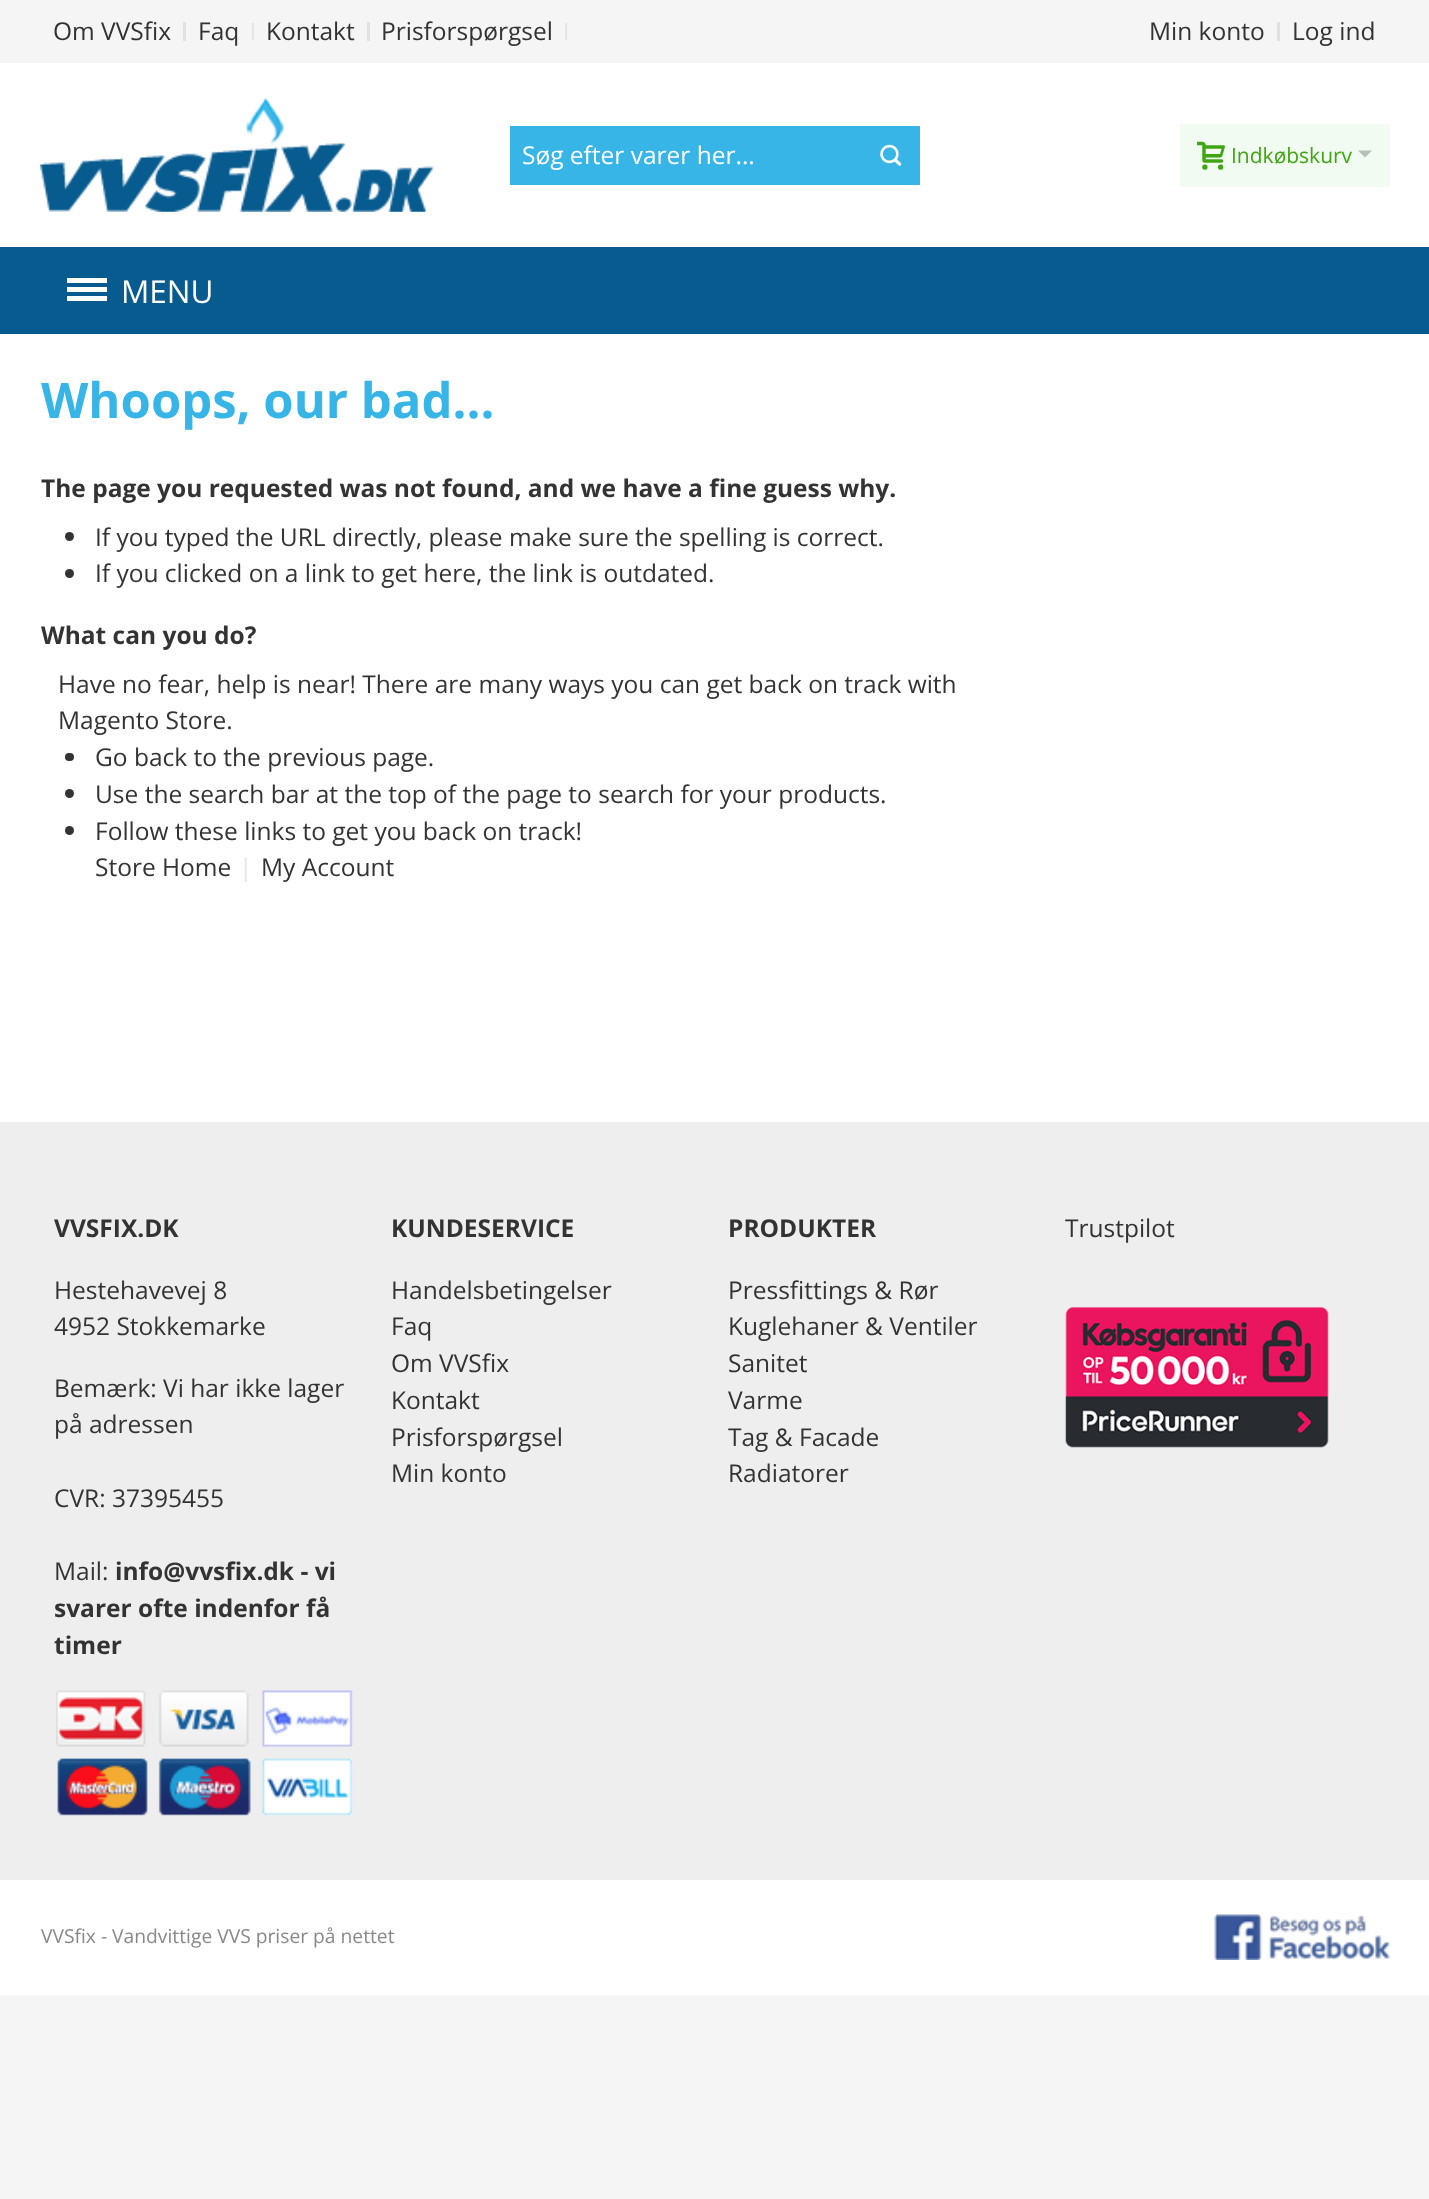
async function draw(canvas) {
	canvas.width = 1429;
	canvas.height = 2199;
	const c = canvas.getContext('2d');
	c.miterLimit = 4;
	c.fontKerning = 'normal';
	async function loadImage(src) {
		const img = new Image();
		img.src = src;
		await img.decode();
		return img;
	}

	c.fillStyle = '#f5f5f5';
	c.fillRect(0, 0, 1429, 2199);
	c.fillStyle = '#fff';
	c.fillRect(0, 63, 1429, 184);
	c.fillStyle = '#e1e1e1';
	c.fillRect(183, 22, 3, 19);
	c.font = '24.5px Open Sans';
	c.fillStyle = '#333';
	c.fillText('Om VVSfix', 53, 40);
	c.drawImage(await loadImage('img1.png'), 252, 23, 2, 17);
	c.fillText('Faq', 198, 40);
	c.fillStyle = '#e1e1e1';
	c.fillRect(367, 22, 3, 19);
	c.fillStyle = '#333';
	c.fillText('Kontakt', 266, 40);
	c.drawImage(await loadImage('img2.png'), 565, 23, 2, 17);
	c.fillText('Prisforspørgsel', 381, 40);
	c.fillText('Min konto', 1149, 40);
	c.fillStyle = '#e1e1e1';
	c.fillRect(1277, 22, 3, 19);
	c.fillStyle = '#333';
	c.fillText('Log ind', 1292, 40);
	c.drawImage(await loadImage('img3.png'), 40, 98, 394, 114);
	c.fillStyle = '#37b5e7';
	c.fillRect(510, 126, 410, 59);
	c.fillStyle = '#fff';
	c.fillText('Søg efter varer her...', 522, 164);
	c.drawImage(await loadImage('img4.png'), 880, 144, 22, 22);
	c.fillStyle = '#f1fbf2';
	c.fillRect(1180, 124, 210, 63);
	c.drawImage(await loadImage('img5.png'), 1197, 141, 28, 29);
	c.font = '21px Open Sans';
	c.fillStyle = '#3fa612';
	c.fillText('Indkøbskurv', 1231, 163);
	c.fillStyle = '#b8bfb9';
	c.beginPath();
	c.moveTo(1358, 150.5);
	c.lineTo(1372, 150.5);
	c.lineTo(1365, 157.5);
	c.closePath();
	c.fill();
	for (const [x, y, w, h, color] of [
		[0, 247, 1429, 87, '#085b8f'],
		[67, 278, 40, 5, '#fff'],
		[67, 287, 40, 5, '#fff'],
		[67, 296, 40, 5, '#fff'],
	]) {
		c.fillStyle = color;
		c.fillRect(x, y, w, h);
	}
	c.font = '31.5px Open Sans';
	c.fillText('MENU', 121, 303);
	c.fillRect(0, 334, 1429, 788);
	c.font = 'bold 49px Open Sans';
	c.fillStyle = '#37b5e7';
	c.fillText('Whoops, our bad...', 41, 418);
	c.font = 'bold 24.5px Open Sans';
	c.fillStyle = '#333';
	c.fillText('The page you requested was not found, and we have a fine guess why.', 41, 497);
	c.beginPath();
	c.arc(69.5, 536.5, 4.5, 0, 2 * Math.PI);
	c.fill();
	c.font = '24.5px Open Sans';
	c.fillText('If you typed the URL directly, please make sure the spelling is correct.', 95, 546);
	c.beginPath();
	c.arc(69.5, 573.5, 4.5, 0, 2 * Math.PI);
	c.fill();
	c.fillText('If you clicked on a link to get here, the link is outdated.', 95, 582);
	c.font = 'bold 24.5px Open Sans';
	c.fillText('What can you do?', 41, 644);
	c.font = '24.5px Open Sans';
	c.fillText('Have no fear, help is near! There are many ways you can get back on track with', 58, 693);
	c.fillText('Magento Store.', 58, 729);
	c.beginPath();
	c.roundRect(65, 753, 9, 8, 4);
	c.fill();
	c.fillText('Go back to the previous page.', 95, 766);
	c.beginPath();
	c.arc(69.5, 793.5, 4.5, 0, 2 * Math.PI);
	c.fill();
	c.fillText('Use the search bar at the top of the page to search for your products.', 95, 803);
	c.beginPath();
	c.arc(69.5, 830.5, 4.5, 0, 2 * Math.PI);
	c.fill();
	c.fillText('Follow these links to get you back on track!', 95, 840);
	c.fillText('Store Home', 95, 876);
	c.fillStyle = '#e5e5e5';
	c.fillText('|', 239, 876);
	c.fillStyle = '#333';
	c.fillText('My Account', 261, 876);
	c.fillStyle = '#eee';
	c.fillRect(0, 1122, 1429, 758);
	c.font = 'bold 24.5px Open Sans';
	c.fillStyle = '#333';
	c.fillText('VVSFIX.DK', 54, 1237);
	c.font = '24.5px Open Sans';
	for (const [text, x, y] of [
		['Hestehavevej 8', 54, 1299],
		['4952 Stokkemarke', 54, 1335],
		['Bemærk: Vi har ikke lager', 54, 1397],
		['på adressen', 54, 1433],
		['CVR: 37395455', 54, 1507],
		['Mail:', 54, 1580],
	]) {
		c.fillText(text, x, y);
	}
	c.font = 'bold 24.5px Open Sans';
	for (const [text, x, y] of [
		['info@vvsfix.dk - vi', 115, 1580],
		['svarer ofte indenfor få', 54, 1617],
		['timer', 54, 1654],
	]) {
		c.fillText(text, x, y);
	}
	c.drawImage(await loadImage('img6.png'), 56, 1690, 297, 126);
	c.fillText('KUNDESERVICE', 391, 1237);
	c.font = '24.5px Open Sans';
	for (const [text, x, y] of [
		['Handelsbetingelser', 391, 1299],
		['Faq', 391, 1335],
		['Om VVSfix', 391, 1372],
		['Kontakt', 391, 1409],
		['Prisforspørgsel', 391, 1446],
		['Min konto', 391, 1482],
	]) {
		c.fillText(text, x, y);
	}
	c.font = 'bold 24.5px Open Sans';
	c.fillText('PRODUKTER', 728, 1237);
	c.font = '24.5px Open Sans';
	for (const [text, x, y] of [
		['Pressfittings & Rør', 728, 1299],
		['Kuglehaner & Ventiler', 728, 1335],
		['Sanitet', 728, 1372],
		['Varme', 728, 1409],
		['Tag & Facade', 728, 1446],
		['Radiatorer', 728, 1482],
		['Trustpilot', 1065, 1237],
	]) {
		c.fillText(text, x, y);
	}
	c.drawImage(await loadImage('img7.png'), 1065, 1307, 264, 141);
	c.fillStyle = '#fff';
	c.fillRect(0, 1880, 1429, 115);
	c.font = '19.25px Open Sans';
	c.fillStyle = '#888';
	c.fillText('VVSfix - Vandvittige VVS priser på nettet', 41, 1943);
	c.drawImage(await loadImage('img8.png'), 1214, 1914, 176, 46);
}

draw(document.querySelector('canvas'));
